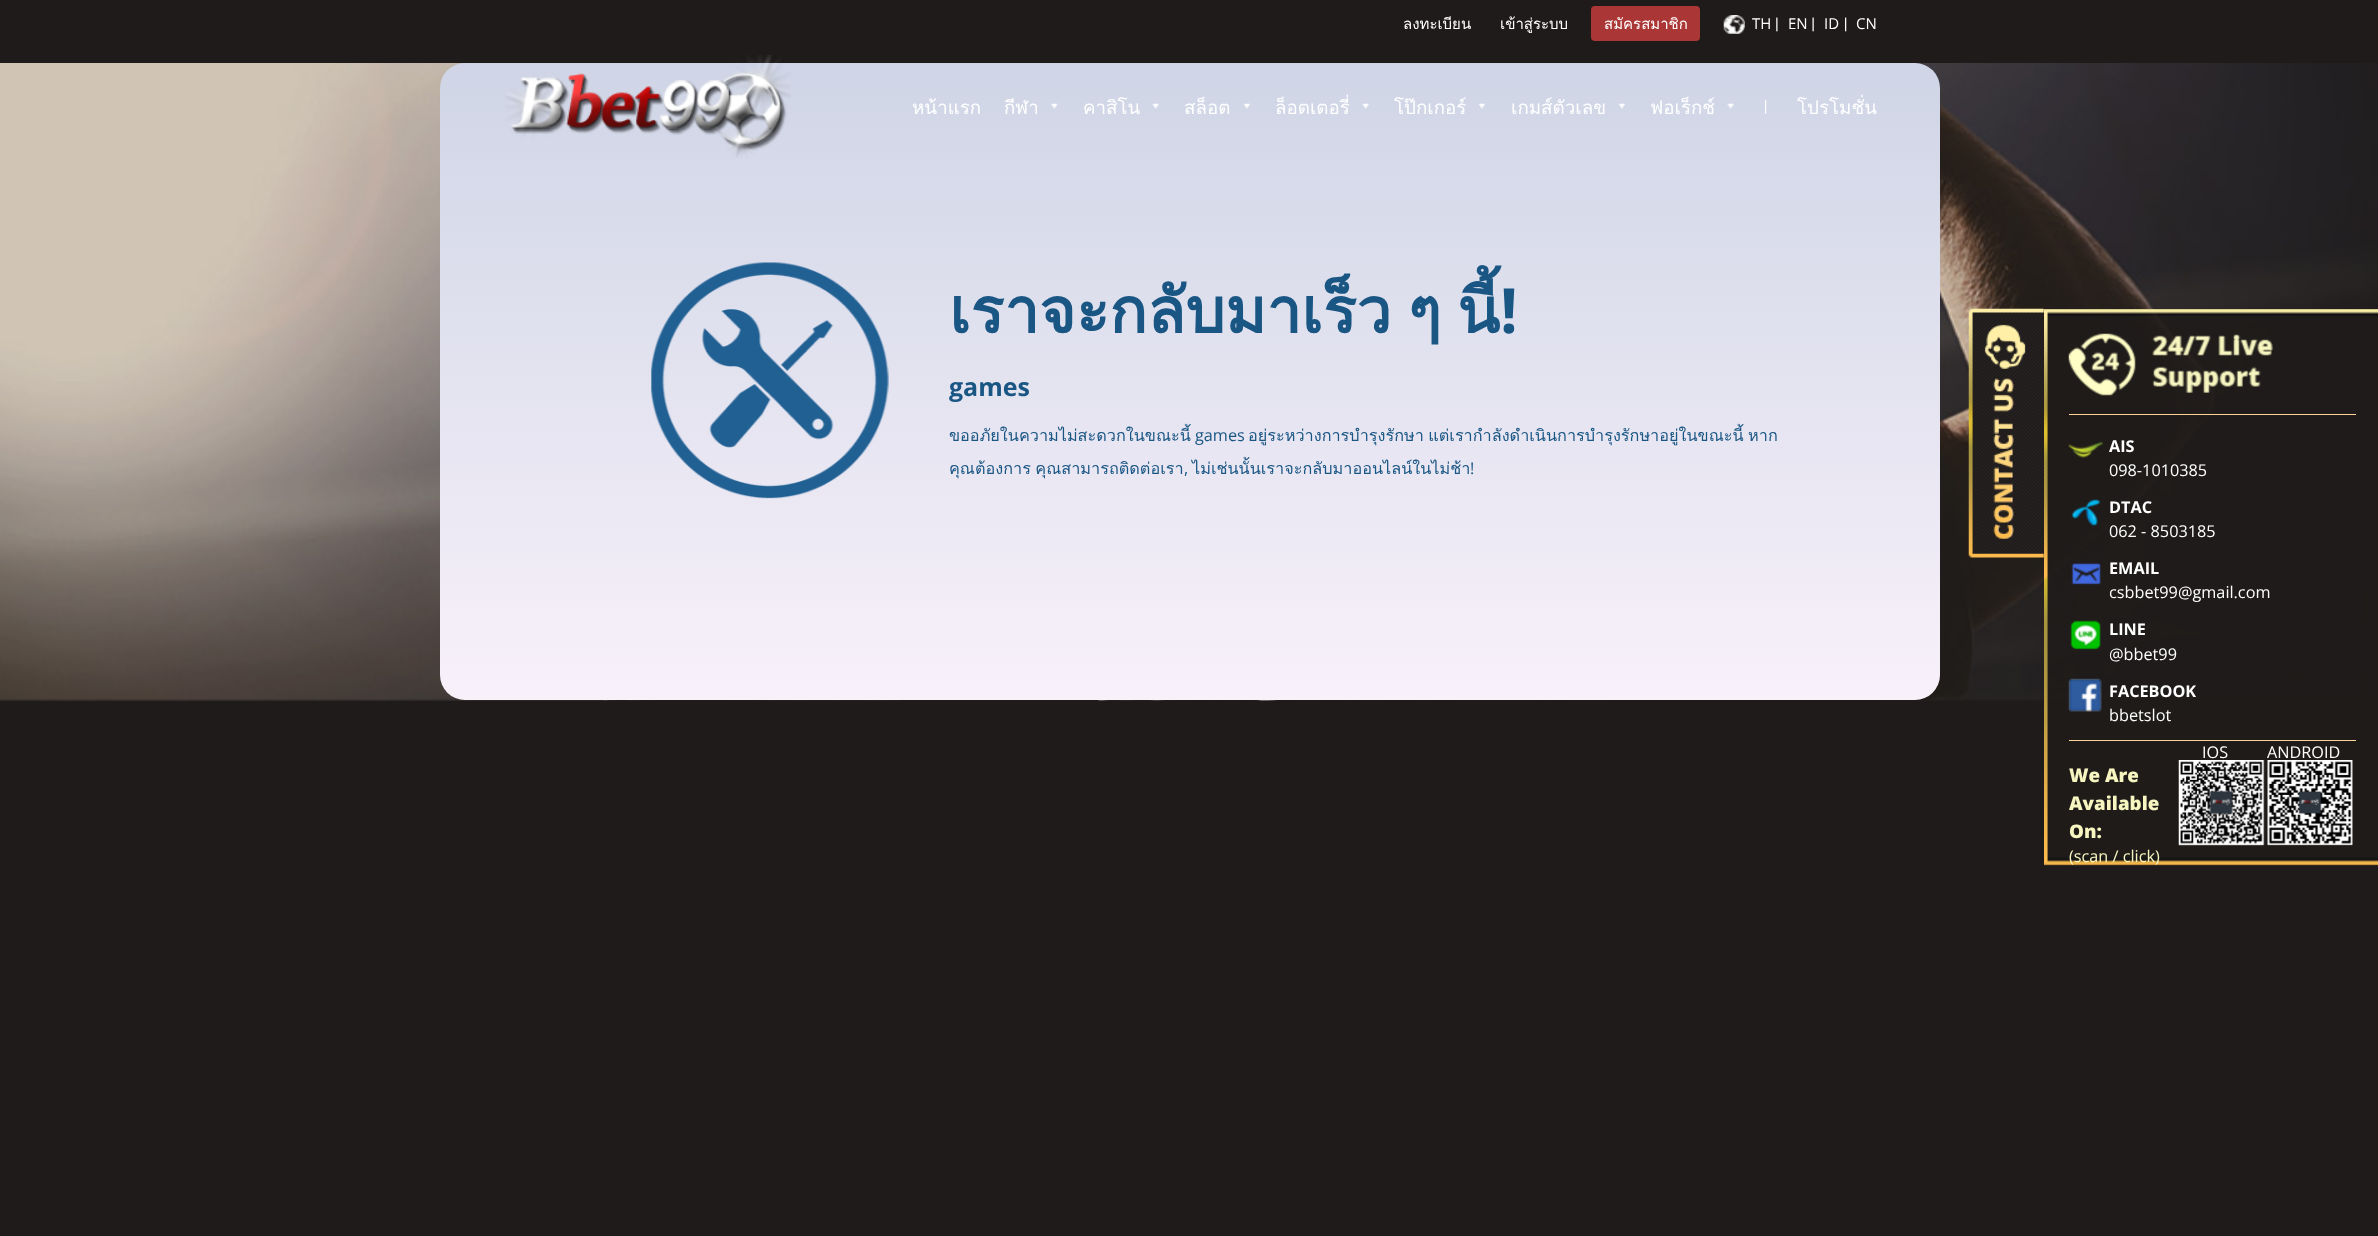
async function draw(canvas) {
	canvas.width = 2378;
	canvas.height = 1236;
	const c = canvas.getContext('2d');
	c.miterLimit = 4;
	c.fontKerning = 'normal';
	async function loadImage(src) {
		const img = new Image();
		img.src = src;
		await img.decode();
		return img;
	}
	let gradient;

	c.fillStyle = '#1f1b1a';
	c.fillRect(0, 0, 2378, 1236);
	c.font = '15px Loma';
	c.fillStyle = '#fff';
	c.fillText('ลงทะเบียน', 1403, 29);
	c.fillText('เข้าสู่ระบบ', 1500, 29);
	c.fillStyle = '#ab3636';
	c.beginPath();
	c.roundRect(1591, 6, 109, 35, 4);
	c.fill();
	c.fillStyle = '#fff';
	c.fillText('สมัครสมาชิก', 1604, 29);
	c.drawImage(await loadImage('img1.png'), 1723, 15, 22, 19);
	c.drawImage(await loadImage('img2.png'), 1776, 17, 2, 15);
	c.font = '15px Open Sans';
	c.fillText('TH', 1752, 29);
	c.drawImage(await loadImage('img3.png'), 1812, 17, 2, 15);
	c.fillText('EN', 1788, 29);
	c.drawImage(await loadImage('img4.png'), 1845, 17, 2, 15);
	c.fillText('ID', 1824, 29);
	c.fillText('CN', 1856, 29);
	c.drawImage(await loadImage('img12.png'), 0, 63, 2378, 638);
	gradient = c.createLinearGradient(1190, 62, 1190, 700);
	gradient.addColorStop(0, '#cfd5e6');
	gradient.addColorStop(1, '#f8f1fa');
	c.fillStyle = gradient;
	c.beginPath();
	c.roundRect(440, 63, 1500, 637, 25);
	c.fill();
	c.drawImage(await loadImage('img5.png'), 505, 55, 286, 103);
	c.font = '18.75px Loma';
	c.fillStyle = '#fff';
	c.fillText('หน้าแรก', 912, 114);
	c.drawImage(await loadImage('img6.png'), 1051, 103, 7, 6);
	c.fillText('กีฬา', 1004, 114);
	c.drawImage(await loadImage('img7.png'), 1152, 103, 7, 6);
	c.fillText('คาสิโน', 1083, 114);
	c.drawImage(await loadImage('img8.png'), 1243, 103, 7, 6);
	c.fillText('สล็อต', 1184, 114);
	c.drawImage(await loadImage('img7.png'), 1362, 103, 7, 6);
	c.fillText('ล็อตเตอรี่', 1275, 114);
	c.drawImage(await loadImage('img8.png'), 1478, 103, 7, 6);
	c.fillText('โป๊กเกอร์', 1394, 114);
	c.drawImage(await loadImage('img9.png'), 1618, 103, 7, 6);
	c.fillText('เกมส์ตัวเลข', 1511, 114);
	c.drawImage(await loadImage('img10.png'), 1727, 103, 7, 6);
	c.fillText('ฟอเร็กช์', 1650, 114);
	c.drawImage(await loadImage('img11.png'), 1765, 100, 2, 14);
	c.fillText('โปรโมชั่น', 1797, 114);
	c.drawImage(await loadImage('img13.png'), 651, 262, 238, 237);
	c.wordSpacing = '-5px';
	c.font = 'bold 62.5px Loma';
	c.fillStyle = '#1a5684';
	c.fillText('เราจะกลับมาเร็ว ๆ นี้', 949, 333);
	c.wordSpacing = '0px';
	c.font = 'bold 62.5px Open Sans';
	c.fillText('!', 1500, 333);
	c.font = 'bold 25px Open Sans';
	c.fillText('games', 949, 396);
	c.font = '16.25px Loma';
	c.fillText('ขออภัยในความไม่สะดวกในขณะนี้', 949, 441);
	c.font = '16.25px Open Sans';
	c.fillText('games', 1195, 441);
	c.wordSpacing = '-1px';
	c.font = '16.25px Loma';
	c.fillText('อยู่ระหว่างการบำรุงรักษา แต่เรากำลังดำเนินการบำรุงรักษาอยู่ในขณะนี้ หาก', 1248, 441);
	c.fillText('คุณต้องการ คุณสามารถติดต่อเรา', 949, 474);
	c.wordSpacing = '0px';
	c.font = '16.25px Open Sans';
	c.fillText(',', 1184, 474);
	c.font = '16.25px Loma';
	c.fillText('ไม่เช่นนั้นเราจะกลับมาออนไลน์ในไม่ช้า', 1192, 474);
	c.font = '16.25px Open Sans';
	c.fillText('!', 1470, 474);
	c.drawImage(await loadImage('img14.png'), 1968, 308, 76, 250);
	c.drawImage(await loadImage('img15.png'), 2044, 309, 334, 557);
	c.fillStyle = '#ffd597';
	c.fillRect(2069, 414, 287, 1);
	c.drawImage(await loadImage('img16.png'), 2068, 333, 205, 63);
	c.drawImage(await loadImage('img17.png'), 2068, 441, 35, 17);
	c.font = 'bold 16.25px Open Sans';
	c.fillStyle = '#fff';
	c.fillText('AIS', 2109, 452);
	c.font = '16.25px Open Sans';
	c.fillText('098-1010385', 2109, 476);
	c.drawImage(await loadImage('img18.png'), 2071, 499, 30, 27);
	c.font = 'bold 16.25px Open Sans';
	c.fillText('DTAC', 2109, 513);
	c.font = '16.25px Open Sans';
	c.fillText('062 - 8503185', 2109, 537);
	c.drawImage(await loadImage('img19.png'), 2071, 563, 30, 22);
	c.font = 'bold 16.25px Open Sans';
	c.fillText('EMAIL', 2109, 574);
	c.font = '16.25px Open Sans';
	c.fillText('csbbet99@gmail.com', 2109, 598);
	c.drawImage(await loadImage('img20.png'), 2070, 620, 31, 30);
	c.font = 'bold 16.25px Open Sans';
	c.fillText('LINE', 2109, 635);
	c.font = '16.25px Open Sans';
	c.fillText('@bbet99', 2109, 660);
	c.drawImage(await loadImage('img21.png'), 2068, 678, 34, 34);
	c.font = 'bold 16.25px Open Sans';
	c.fillText('FACEBOOK', 2109, 697);
	c.font = '16.25px Open Sans';
	c.fillText('bbetslot', 2109, 721);
	c.fillStyle = '#ffd597';
	c.fillRect(2069, 740, 287, 1);
	c.fillStyle = '#fff';
	c.fillText('IOS', 2202, 758);
	c.drawImage(await loadImage('img22.png'), 2178, 760, 87, 86);
	c.fillText('ANDROID', 2267, 758);
	c.drawImage(await loadImage('img23.png'), 2267, 760, 86, 86);
	c.font = '800 18.75px Open Sans';
	c.fillStyle = '#f7f6c0';
	for (const [text, x, y] of [
		['We Are', 2069, 782],
		['Available', 2069, 810],
		['On:', 2069, 838],
	]) {
		c.fillText(text, x, y);
	}
	c.font = '16.25px Open Sans';
	c.fillText('(scan / click)', 2069, 862);
}

draw(document.querySelector('canvas'));
